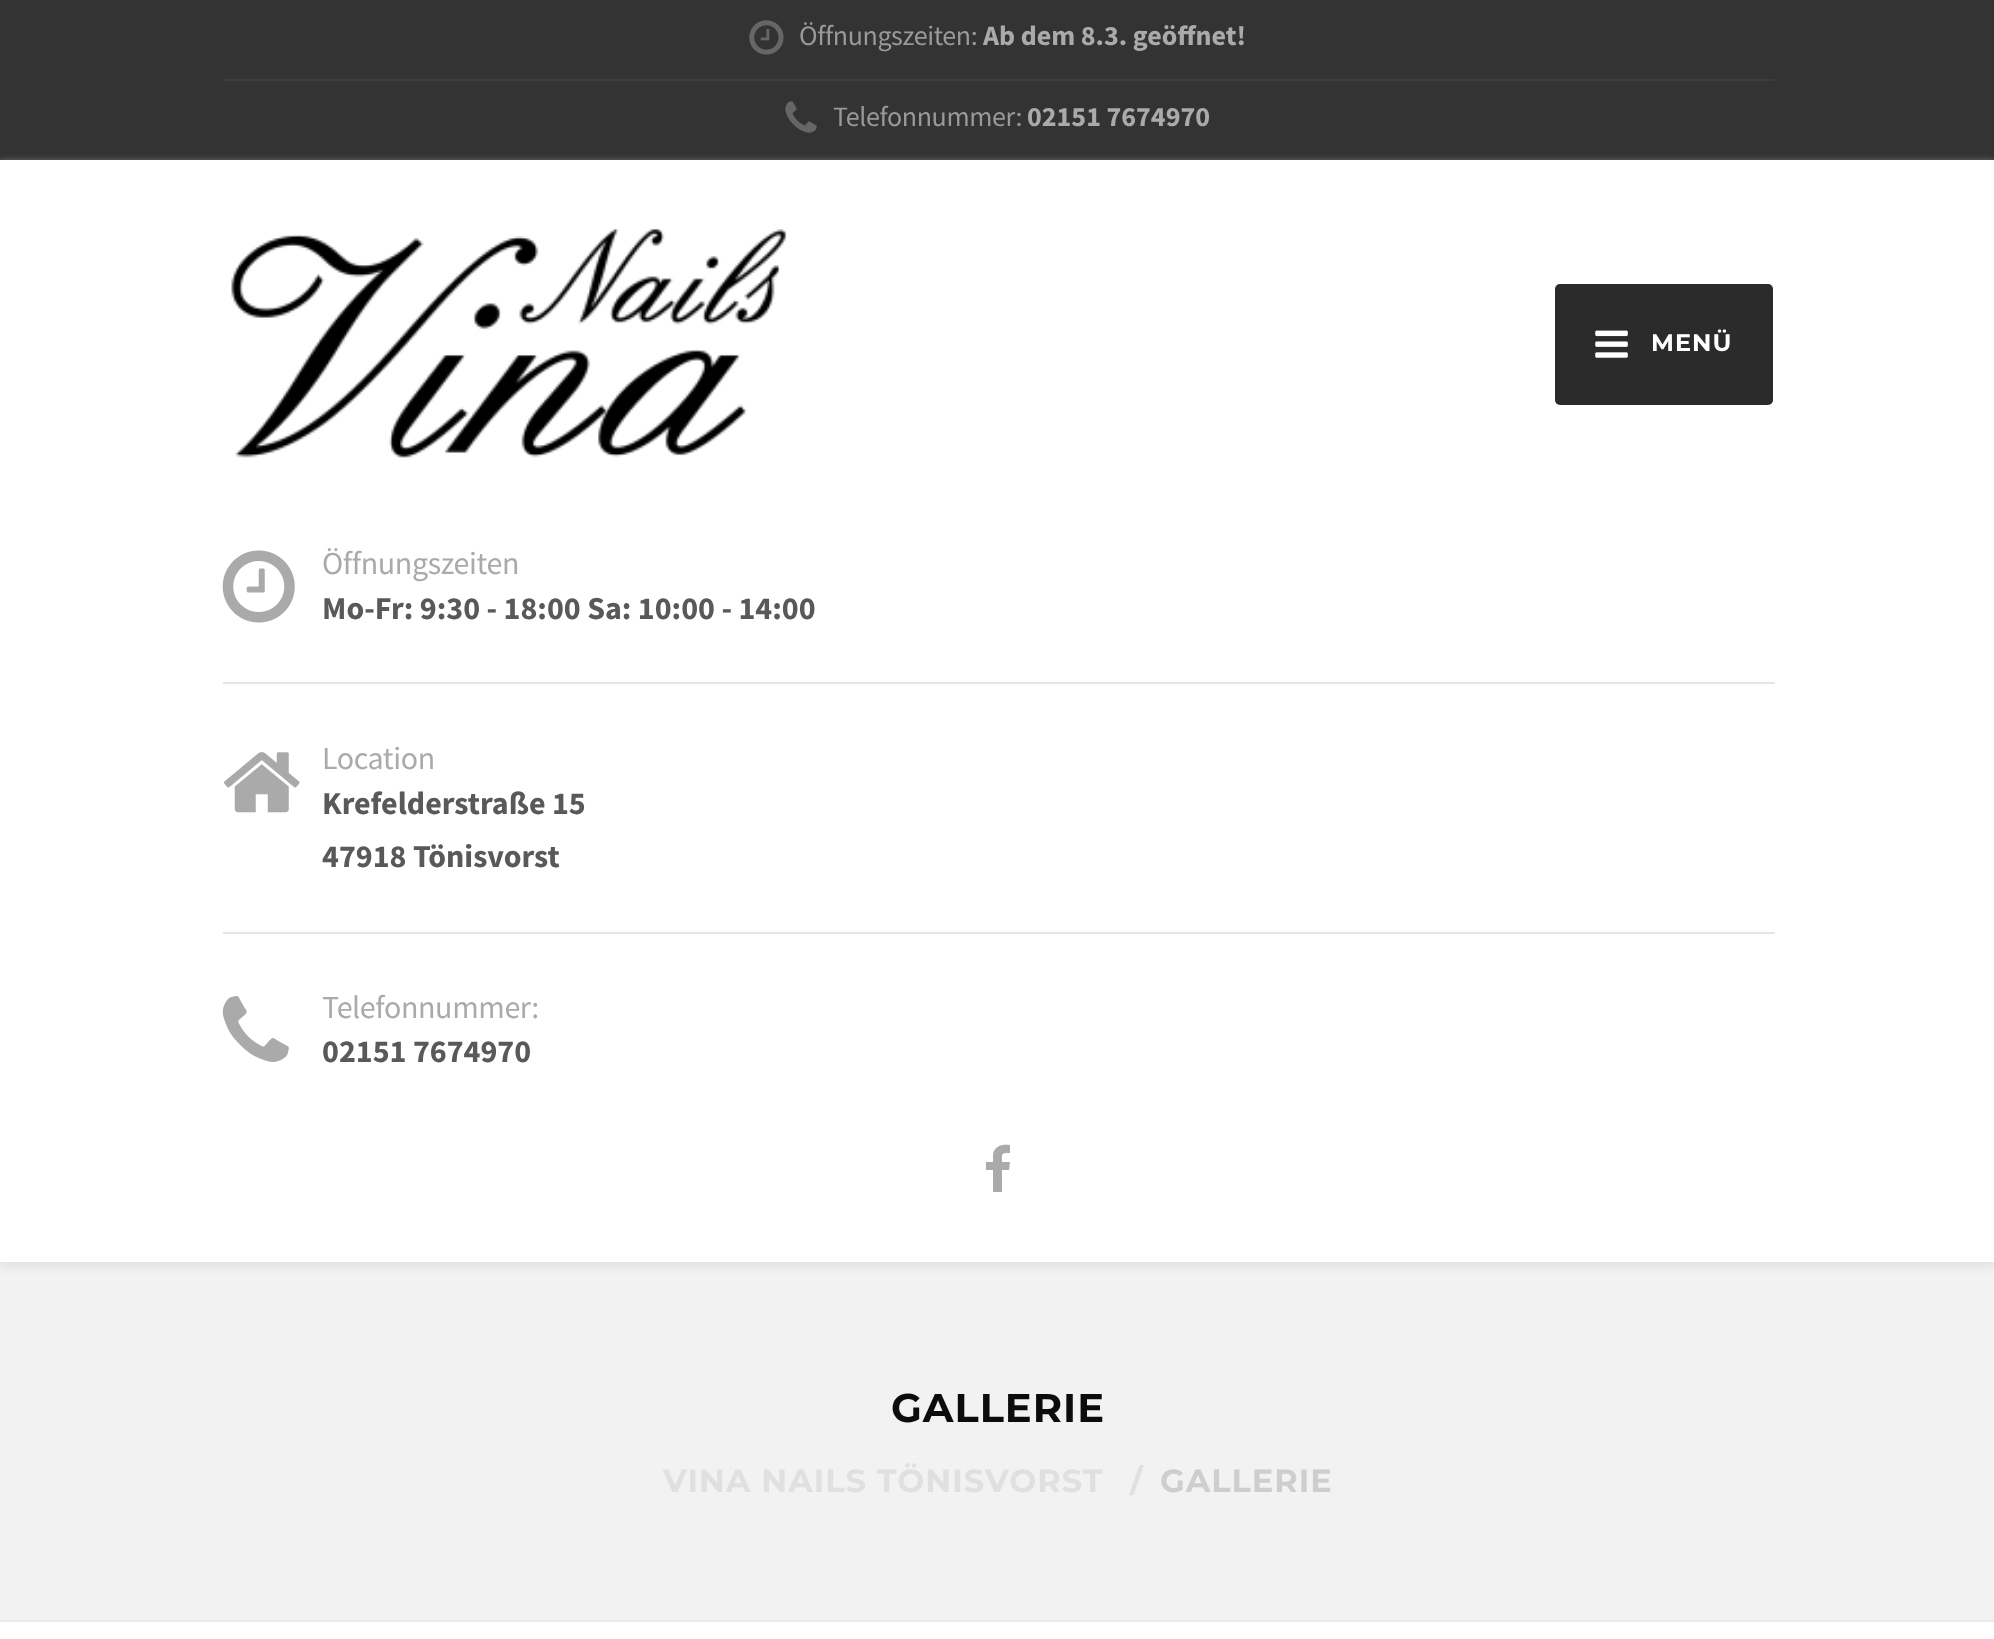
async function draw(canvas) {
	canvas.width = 1994;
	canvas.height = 1639;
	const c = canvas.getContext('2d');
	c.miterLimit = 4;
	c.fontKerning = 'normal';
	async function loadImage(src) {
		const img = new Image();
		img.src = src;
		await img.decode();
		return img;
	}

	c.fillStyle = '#fff';
	c.fillRect(0, 0, 1994, 1639);
	c.fillStyle = '#333';
	c.fillRect(0, 0, 1994, 160);
	c.fillStyle = '#3d3d3d';
	c.fillRect(223, 79, 1552, 2);
	c.drawImage(await loadImage('img1.png'), 749, 20, 35, 35);
	c.letterSpacing = '-0.4px';
	c.font = '28px Source Sans Pro';
	c.fillStyle = '#999';
	c.fillText('Öffnungszeiten:', 799, 45);
	c.letterSpacing = '0px';
	c.font = 'bold 28px Source Sans Pro';
	c.fillStyle = '#aaa';
	c.fillText('Ab dem 8.3. geöffnet!', 983, 45);
	c.drawImage(await loadImage('img2.png'), 785, 101, 32, 32);
	c.letterSpacing = '-0.4px';
	c.font = '28px Source Sans Pro';
	c.fillStyle = '#999';
	c.fillText('Telefonnummer:', 833, 126);
	c.letterSpacing = '0px';
	c.font = 'bold 28px Source Sans Pro';
	c.fillStyle = '#aaa';
	c.fillText('02151 7674970', 1027, 126);
	c.fillStyle = '#f2f2f2';
	c.fillRect(0, 1262, 1994, 358);
	c.save();
	c.beginPath();
	c.moveTo(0, 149);
	c.lineTo(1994, 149);
	c.lineTo(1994, 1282);
	c.lineTo(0, 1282);
	c.closePath();
	c.moveTo(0, 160);
	c.lineTo(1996, 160);
	c.lineTo(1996, 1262);
	c.lineTo(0, 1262);
	c.closePath();
	c.clip('evenodd');
	c.fillStyle = '#e2e2e2';
	c.filter = 'blur(4.5px)';
	c.beginPath();
	c.rect(0, 164, 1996, 1103);
	c.fill();
	c.filter = 'none';
	c.restore();
	c.drawImage(await loadImage('img3.png'), 231, 228, 556, 230);
	c.fillStyle = '#2b2b2b';
	c.beginPath();
	c.roundRect(1555, 284, 218, 121, 5);
	c.fill();
	c.drawImage(await loadImage('img4.png'), 1595, 330, 33, 28);
	c.letterSpacing = '1px';
	c.font = 'bold 24px Montserrat';
	c.fillStyle = '#fff';
	c.fillText('MENÜ', 1651, 351);
	c.drawImage(await loadImage('img5.png'), 222, 550, 73, 73);
	c.letterSpacing = '-0.4px';
	c.font = '32px Source Sans Pro';
	c.fillStyle = '#aaa';
	c.fillText('Öffnungszeiten', 322, 574);
	c.letterSpacing = '0px';
	c.font = 'bold 32px Source Sans Pro';
	c.fillStyle = '#595959';
	c.fillText('Mo-Fr: 9:30 - 18:00 Sa: 10:00 - 14:00', 322, 619);
	c.fillStyle = '#e6e6e6';
	c.fillRect(223, 682, 1552, 2);
	c.drawImage(await loadImage('img6.png'), 224, 752, 76, 61);
	c.letterSpacing = '-0.4px';
	c.font = '32px Source Sans Pro';
	c.fillStyle = '#aaa';
	c.fillText('Location', 322, 769);
	c.letterSpacing = '0px';
	c.font = 'bold 32px Source Sans Pro';
	c.fillStyle = '#595959';
	c.fillText('Krefelderstraße 15', 322, 814);
	c.fillText('47918 Tönisvorst', 322, 867);
	c.fillStyle = '#e6e6e6';
	c.fillRect(223, 932, 1552, 2);
	c.drawImage(await loadImage('img7.png'), 222, 996, 67, 66);
	c.letterSpacing = '-0.4px';
	c.font = '32px Source Sans Pro';
	c.fillStyle = '#aaa';
	c.fillText('Telefonnummer:', 322, 1018);
	c.letterSpacing = '0px';
	c.font = 'bold 32px Source Sans Pro';
	c.fillStyle = '#595959';
	c.fillText('02151 7674970', 322, 1062);
	c.fillStyle = '#aaa';
	c.beginPath();
	c.moveTo(1010, 1145);
	c.lineTo(1010, 1153);
	c.bezierCurveTo(1001, 1153, 1002, 1153, 1002, 1162);
	c.lineTo(1010, 1162);
	c.lineTo(1009, 1170);
	c.lineTo(1002, 1170);
	c.lineTo(1002, 1192);
	c.lineTo(993, 1192);
	c.lineTo(993, 1170);
	c.lineTo(986, 1170);
	c.lineTo(986, 1162);
	c.lineTo(993, 1162);
	c.lineTo(993, 1154);
	c.bezierCurveTo(995, 1145, 1003, 1144, 1010, 1145);
	c.closePath();
	c.fill();
	c.fillStyle = '#eaeaea';
	c.fillRect(0, 1620, 1994, 2);
	c.letterSpacing = '1px';
	c.font = 'bold 40px Montserrat';
	c.fillStyle = '#0c0c0c';
	c.fillText('GALLERIE', 891, 1422);
	c.font = 'bold 32px Montserrat';
	c.fillStyle = '#e0e0e0';
	c.fillText('VINA NAILS TÖNISVORST', 663, 1492);
	c.fillText('/', 1130, 1492);
	c.fillStyle = '#cecece';
	c.fillText('GALLERIE', 1160, 1492);
}

draw(document.querySelector('canvas'));
